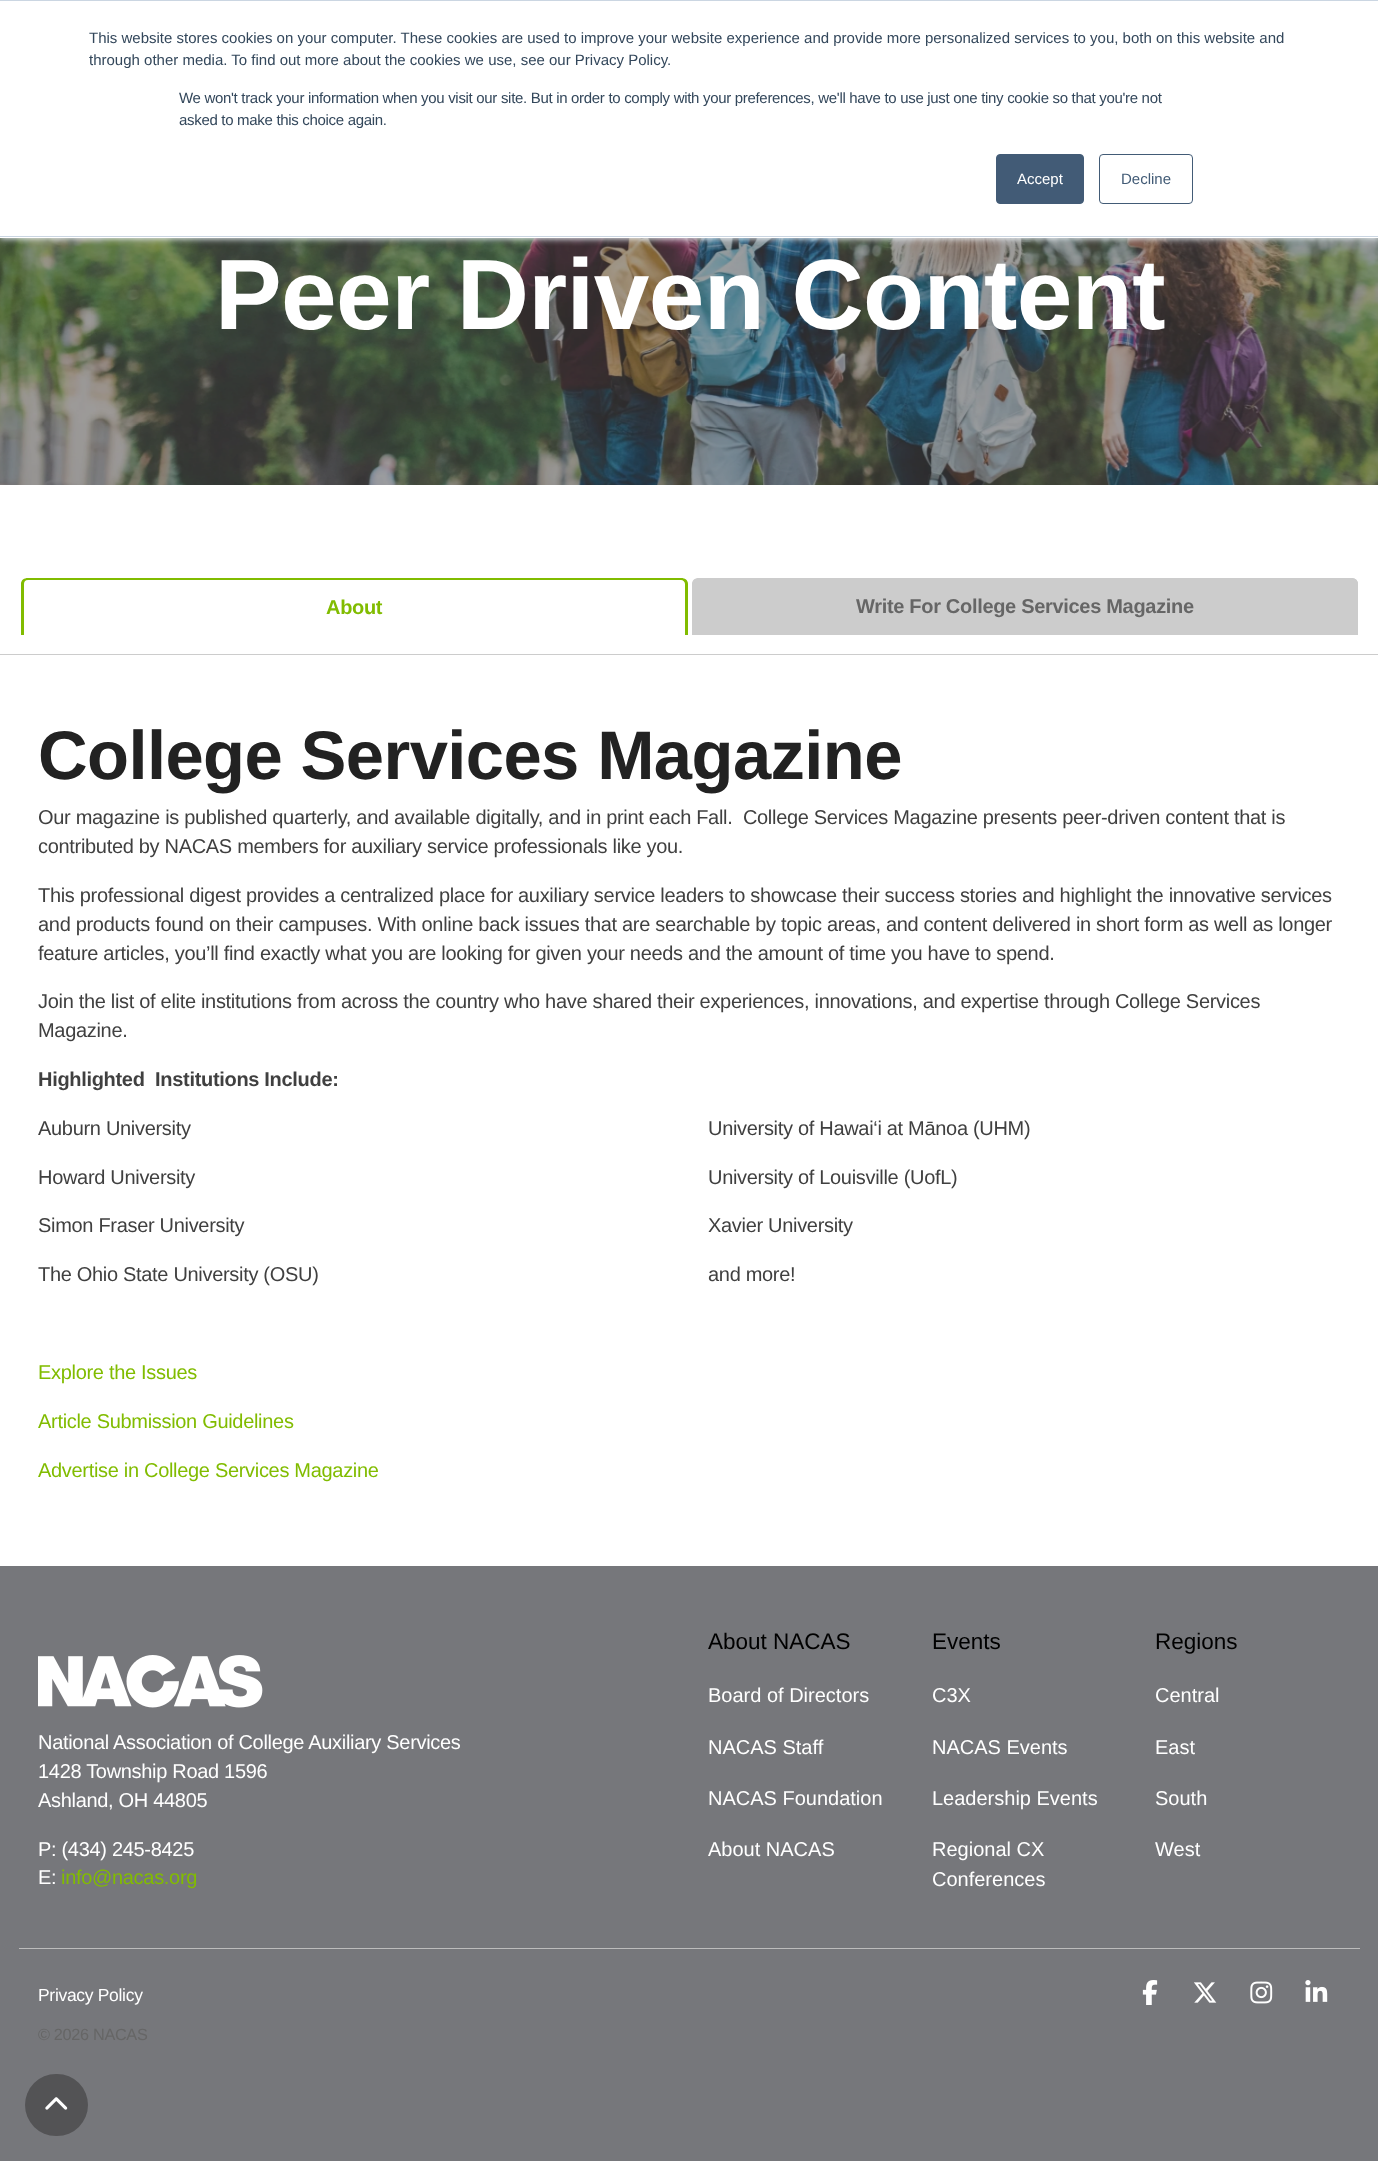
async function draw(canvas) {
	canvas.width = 1378;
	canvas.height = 2161;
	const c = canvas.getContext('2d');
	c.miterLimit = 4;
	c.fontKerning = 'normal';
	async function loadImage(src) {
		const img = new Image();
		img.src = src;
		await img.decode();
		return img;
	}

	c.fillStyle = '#fff';
	c.fillRect(0, 0, 1378, 2161);
	c.drawImage(await loadImage('img1.png'), 0, 238, 1378, 247);
	c.fillStyle = '#eaf0f6';
	c.filter = 'blur(3px)';
	c.beginPath();
	c.rect(0, 1, 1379, 238);
	c.fill();
	c.filter = 'none';
	for (const [x, y, w, h, color] of [
		[0, 1, 1378, 237, '#fff'],
		[0, 0, 1378, 1, '#cbd6e2'],
		[0, 236, 1378, 1, '#cbd6e2'],
	]) {
		c.fillStyle = color;
		c.fillRect(x, y, w, h);
	}
	c.font = '15px Liberation Sans';
	c.fillStyle = '#33475b';
	c.fillText('This website stores cookies on your computer. These cookies are used to improve your website experience and provide more personalized services to you, both on this website and', 89, 43);
	c.fillText('through other media. To find out more about the cookies we use, see our Privacy Policy.', 89, 65);
	c.letterSpacing = '-0.31px';
	c.fillText('We won\'t track your information when you visit our site. But in order to comply with your preferences, we\'ll have to use just one tiny cookie so that you\'re not', 179, 103);
	c.fillText('asked to make this choice again.', 179, 125);
	c.fillStyle = '#425b76';
	c.beginPath();
	c.roundRect(996.5, 154.5, 87, 49, 3.5);
	c.fill();
	c.strokeStyle = '#425b76';
	c.stroke();
	c.letterSpacing = '0px';
	c.fillStyle = '#fff';
	c.fillText('Accept', 1017, 184);
	c.beginPath();
	c.roundRect(1099.5, 154.5, 93, 49, 3.5);
	c.stroke();
	c.fillStyle = '#425b76';
	c.fillText('Decline', 1121, 184);
	c.letterSpacing = '-0.6px';
	c.font = 'bold 100px Liberation Sans';
	c.fillStyle = '#fff';
	c.fillText('Peer Driven Content', 215, 329);
	c.fillStyle = '#ccc';
	c.fillRect(0, 654, 1378, 1);
	c.fillStyle = '#81bc00';
	c.beginPath();
	c.moveTo(28, 578);
	c.lineTo(681, 578);
	c.bezierCurveTo(685, 578, 688, 580, 688, 584);
	c.lineTo(688, 635);
	c.lineTo(21, 635);
	c.lineTo(21, 584);
	c.bezierCurveTo(21, 580, 24, 578, 28, 578);
	c.closePath();
	c.moveTo(28, 580);
	c.lineTo(681, 580);
	c.bezierCurveTo(683, 580, 685, 582, 685, 584);
	c.lineTo(685, 635);
	c.lineTo(24, 635);
	c.lineTo(24, 584);
	c.bezierCurveTo(24, 582, 25, 580, 28, 580);
	c.closePath();
	c.fill('evenodd');
	c.letterSpacing = '-0.31px';
	c.font = 'bold 20px Liberation Sans';
	c.fillText('About', 326, 614);
	c.fillStyle = '#ccc';
	c.beginPath();
	c.roundRect(693, 578, 665, 57, [6, 6, 0, 0]);
	c.fill();
	c.beginPath();
	c.moveTo(699, 578);
	c.lineTo(1351, 578);
	c.bezierCurveTo(1355, 578, 1358, 580, 1358, 584);
	c.lineTo(1358, 635);
	c.lineTo(692, 635);
	c.lineTo(692, 584);
	c.bezierCurveTo(692, 580, 695, 578, 699, 578);
	c.closePath();
	c.moveTo(699, 579);
	c.lineTo(1351, 579);
	c.bezierCurveTo(1354, 579, 1356, 581, 1356, 584);
	c.lineTo(1356, 635);
	c.lineTo(694, 635);
	c.lineTo(694, 584);
	c.bezierCurveTo(694, 581, 696, 579, 699, 579);
	c.closePath();
	c.fill('evenodd');
	c.fillStyle = '#666';
	c.fillText('Write For College Services Magazine', 856, 613);
	c.letterSpacing = '-0.6px';
	c.font = 'bold 68.75px Liberation Sans';
	c.fillStyle = '#222';
	c.fillText('College Services Magazine', 38, 779);
	c.letterSpacing = '-0.31px';
	c.font = '20px Liberation Sans';
	c.fillStyle = '#404040';
	for (const [text, x, y] of [
		['Our magazine is published quarterly, and available digitally, and in print each Fall.  College Services Magazine presents peer-driven content that is', 38, 824],
		['contributed by NACAS members for auxiliary service professionals like you.', 38, 853],
		['This professional digest provides a centralized place for auxiliary service leaders to showcase their success stories and highlight the innovative services', 38, 902],
		['and products found on their campuses. With online back issues that are searchable by topic areas, and content delivered in short form as well as longer', 38, 931],
		['feature articles, you’ll find exactly what you are looking for given your needs and the amount of time you have to spend.', 38, 960],
		['Join the list of elite institutions from across the country who have shared their experiences, innovations, and expertise through College Services', 38, 1008],
		['Magazine.', 38, 1037],
	]) {
		c.fillText(text, x, y);
	}
	c.font = 'bold 20px Liberation Sans';
	c.fillText('Highlighted  Institutions Include:', 38, 1086);
	c.font = '20px Liberation Sans';
	for (const [text, x, y] of [
		['Auburn University', 38, 1135],
		['Howard University', 38, 1184],
		['Simon Fraser University', 38, 1232],
		['The Ohio State University (OSU)', 38, 1281],
	]) {
		c.fillText(text, x, y);
	}
	c.fillStyle = '#81bc00';
	for (const [text, x, y] of [
		['Explore the Issues', 38, 1379],
		['Article Submission Guidelines', 38, 1428],
		['Advertise in College Services Magazine', 38, 1477],
	]) {
		c.fillText(text, x, y);
	}
	c.fillStyle = '#404040';
	for (const [text, x, y] of [
		['University of Hawai‘i at Mānoa (UHM)', 708, 1135],
		['University of Louisville (UofL)', 708, 1184],
		['Xavier University', 708, 1232],
		['and more!', 708, 1281],
	]) {
		c.fillText(text, x, y);
	}
	c.fillStyle = '#76777b';
	c.fillRect(0, 1566, 1378, 595);
	c.drawImage(await loadImage('img2.png'), 38, 1655, 225, 53);
	c.fillStyle = '#fff';
	for (const [text, x, y] of [
		['National Association of College Auxiliary Services', 38, 1749],
		['1428 Township Road 1596', 38, 1778],
		['Ashland, OH 44805', 38, 1807],
		['P: (434) 245-8425', 38, 1856],
		['E:', 38, 1884],
	]) {
		c.fillText(text, x, y);
	}
	c.fillStyle = '#81bc00';
	c.fillText('info@nacas.org', 61, 1884);
	c.letterSpacing = '0px';
	c.font = '22.5px Liberation Sans';
	c.fillStyle = '#000';
	c.fillText('About NACAS', 708, 1649);
	c.font = '20px Liberation Sans';
	c.fillStyle = '#fff';
	for (const [text, x, y] of [
		['Board of Directors', 708, 1702],
		['NACAS Staff', 708, 1754],
		['NACAS Foundation', 708, 1805],
		['About NACAS', 708, 1856],
	]) {
		c.fillText(text, x, y);
	}
	c.font = '22.5px Liberation Sans';
	c.fillStyle = '#000';
	c.fillText('Events', 932, 1649);
	c.font = '20px Liberation Sans';
	c.fillStyle = '#fff';
	for (const [text, x, y] of [
		['C3X', 932, 1702],
		['NACAS Events', 932, 1754],
		['Leadership Events', 932, 1805],
		['Regional CX', 932, 1856],
		['Conferences', 932, 1886],
	]) {
		c.fillText(text, x, y);
	}
	c.font = '22.5px Liberation Sans';
	c.fillStyle = '#000';
	c.fillText('Regions', 1155, 1649);
	c.font = '20px Liberation Sans';
	c.fillStyle = '#fff';
	for (const [text, x, y] of [
		['Central', 1155, 1702],
		['East', 1155, 1754],
		['South', 1155, 1805],
		['West', 1155, 1856],
	]) {
		c.fillText(text, x, y);
	}
	c.fillStyle = '#bcbcbc';
	c.fillRect(19, 1948, 1341, 1);
	c.letterSpacing = '-0.31px';
	c.font = '17.5px Liberation Sans';
	c.fillStyle = '#fff';
	c.fillText('Privacy Policy', 38, 2001);
	c.font = '16.25px Liberation Sans';
	c.fillStyle = '#666';
	c.fillText('© 2026 NACAS', 38, 2040);
	c.drawImage(await loadImage('img3.png'), 1142, 1980, 16, 25);
	c.drawImage(await loadImage('img4.png'), 1194, 1982, 23, 21);
	c.drawImage(await loadImage('img5.png'), 1250, 1981, 23, 23);
	c.drawImage(await loadImage('img6.png'), 1305, 1980, 23, 22);
	c.fillStyle = '#535355';
	c.beginPath();
	c.roundRect(25, 2074, 63, 62, 31);
	c.fill();
	c.drawImage(await loadImage('img7.png'), 45, 2097, 23, 13);
}

draw(document.querySelector('canvas'));
